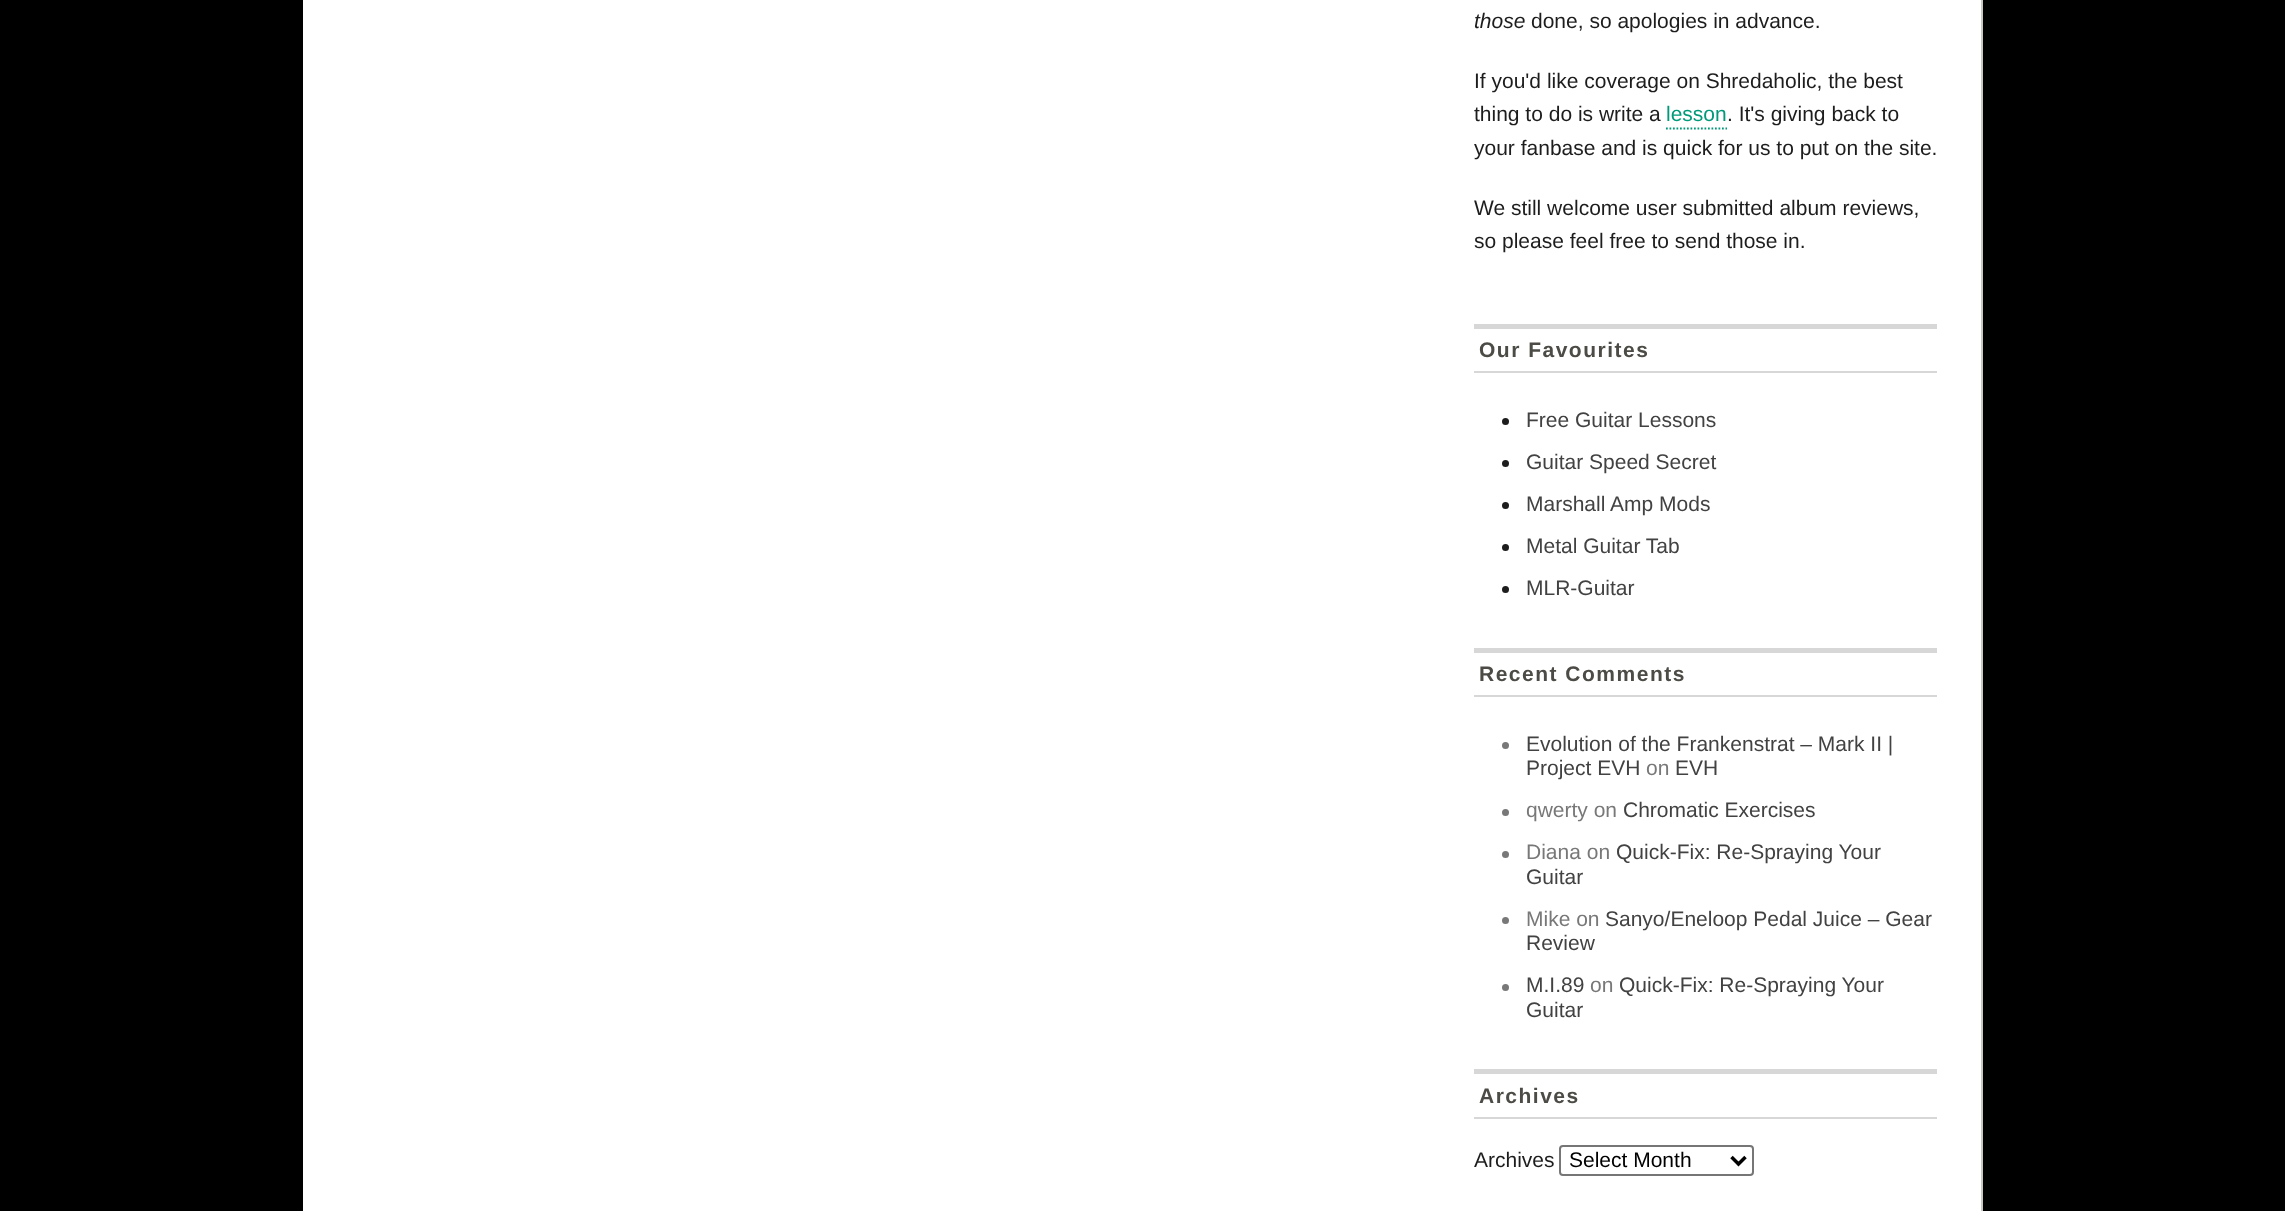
async function draw(canvas) {
	canvas.width = 2285;
	canvas.height = 1211;
	const c = canvas.getContext('2d');
	c.miterLimit = 4;
	c.fontKerning = 'normal';

	c.fillStyle = '#000';
	c.fillRect(0, 0, 2285, 1211);
	c.fillStyle = '#fff';
	c.fillRect(303, 0, 1678, 1211);
	c.fillStyle = '#cac8c2';
	c.fillRect(1981, 0, 2, 1211);
	c.font = 'italic 21px Liberation Sans';
	c.fillStyle = '#1d1d1d';
	c.fillText('those', 1474, 28);
	c.font = '21px Liberation Sans';
	for (const [text, x, y] of [
		['done, so apologies in advance.', 1531, 28],
		['If you\'d like coverage on Shredaholic, the best', 1474, 88],
		['thing to do is write a', 1474, 121],
	]) {
		c.fillText(text, x, y);
	}
	c.fillStyle = '#00997a';
	c.fillText('lesson', 1666, 121);
	c.beginPath();
	c.moveTo(1666, 128.5);
	c.lineTo(1727, 128.5);
	c.strokeStyle = '#00997a';
	c.lineWidth = 1.8;
	c.setLineDash([1.75, 1.75]);
	c.stroke();
	c.fillStyle = '#1d1d1d';
	for (const [text, x, y] of [
		['. It\'s giving back to', 1727, 121],
		['your fanbase and is quick for us to put on the site.', 1474, 155],
		['We still welcome user submitted album reviews,', 1474, 215],
		['so please feel free to send those in.', 1474, 248],
	]) {
		c.fillText(text, x, y);
	}
	c.fillStyle = '#d7d7d7';
	c.fillRect(1474, 324, 463, 5);
	c.fillRect(1474, 371, 463, 2);
	c.letterSpacing = '1.5px';
	c.font = 'bold 21px Liberation Sans';
	c.fillStyle = '#4c4b46';
	c.fillText('Our Favourites', 1479, 357);
	c.fillStyle = '#1d1d1d';
	c.beginPath();
	c.arc(1505.5, 421.5, 3.5, 0, 2 * Math.PI);
	c.fill();
	c.letterSpacing = '0px';
	c.font = '21px Liberation Sans';
	c.fillStyle = '#424242';
	c.fillText('Free Guitar Lessons', 1526, 427);
	c.fillStyle = '#1d1d1d';
	c.beginPath();
	c.arc(1505.5, 463.5, 3.5, 0, 2 * Math.PI);
	c.fill();
	c.fillStyle = '#424242';
	c.fillText('Guitar Speed Secret', 1526, 469);
	c.fillStyle = '#1d1d1d';
	c.beginPath();
	c.arc(1505.5, 505.5, 3.5, 0, 2 * Math.PI);
	c.fill();
	c.fillStyle = '#424242';
	c.fillText('Marshall Amp Mods', 1526, 511);
	c.fillStyle = '#1d1d1d';
	c.beginPath();
	c.arc(1505.5, 547.5, 3.5, 0, 2 * Math.PI);
	c.fill();
	c.fillStyle = '#424242';
	c.fillText('Metal Guitar Tab', 1526, 553);
	c.fillStyle = '#1d1d1d';
	c.beginPath();
	c.arc(1505.5, 589.5, 3.5, 0, 2 * Math.PI);
	c.fill();
	c.fillStyle = '#424242';
	c.fillText('MLR-Guitar', 1526, 595);
	c.fillStyle = '#d7d7d7';
	c.fillRect(1474, 648, 463, 5);
	c.fillRect(1474, 695, 463, 2);
	c.letterSpacing = '1.5px';
	c.font = 'bold 21px Liberation Sans';
	c.fillStyle = '#4c4b46';
	c.fillText('Recent Comments', 1479, 681);
	c.fillStyle = '#787878';
	c.beginPath();
	c.arc(1505.5, 745.5, 3.5, 0, 2 * Math.PI);
	c.fill();
	c.letterSpacing = '0px';
	c.font = '21px Liberation Sans';
	c.fillStyle = '#424242';
	c.fillText('Evolution of the Frankenstrat – Mark II |', 1526, 751);
	c.fillText('Project EVH', 1526, 775);
	c.fillStyle = '#787878';
	c.fillText('on', 1646, 775);
	c.fillStyle = '#424242';
	c.fillText('EVH', 1675, 775);
	c.fillStyle = '#787878';
	c.beginPath();
	c.arc(1505.5, 812.5, 3.5, 0, 2 * Math.PI);
	c.fill();
	c.fillText('qwerty on', 1526, 817);
	c.fillStyle = '#424242';
	c.fillText('Chromatic Exercises', 1623, 817);
	c.fillStyle = '#787878';
	c.beginPath();
	c.arc(1505.5, 854.5, 3.5, 0, 2 * Math.PI);
	c.fill();
	c.fillText('Diana on', 1526, 859);
	c.fillStyle = '#424242';
	c.fillText('Quick-Fix: Re-Spraying Your', 1616, 859);
	c.fillText('Guitar', 1526, 884);
	c.fillStyle = '#787878';
	c.beginPath();
	c.arc(1505.5, 920.5, 3.5, 0, 2 * Math.PI);
	c.fill();
	c.fillText('Mike on', 1526, 926);
	c.fillStyle = '#424242';
	c.fillText('Sanyo/Eneloop Pedal Juice – Gear', 1605, 926);
	c.fillText('Review', 1526, 950);
	c.fillStyle = '#787878';
	c.beginPath();
	c.arc(1505.5, 987.5, 3.5, 0, 2 * Math.PI);
	c.fill();
	c.fillStyle = '#424242';
	c.fillText('M.I.89', 1526, 992);
	c.fillStyle = '#787878';
	c.fillText('on', 1590, 992);
	c.fillStyle = '#424242';
	c.fillText('Quick-Fix: Re-Spraying Your', 1619, 992);
	c.fillText('Guitar', 1526, 1017);
	c.fillStyle = '#d7d7d7';
	c.fillRect(1474, 1069, 463, 5);
	c.fillRect(1474, 1117, 463, 2);
	c.letterSpacing = '1.5px';
	c.font = 'bold 21px Liberation Sans';
	c.fillStyle = '#4c4b46';
	c.fillText('Archives', 1479, 1103);
	c.letterSpacing = '0px';
	c.font = '21px Liberation Sans';
	c.fillStyle = '#1d1d1d';
	c.fillText('Archives', 1474, 1167);
	c.beginPath();
	c.roundRect(1560, 1146, 193, 29, 3);
	c.strokeStyle = '#767676';
	c.lineWidth = 2;
	c.setLineDash([]);
	c.stroke();
	c.beginPath();
	c.moveTo(1731.5, 1157);
	c.lineTo(1738.5, 1164);
	c.lineTo(1745.5, 1157);
	c.strokeStyle = '#000';
	c.lineWidth = 3.5;
	c.stroke();
	c.fillStyle = '#000';
	c.fillText('Select Month', 1569, 1167);
}

draw(document.querySelector('canvas'));
